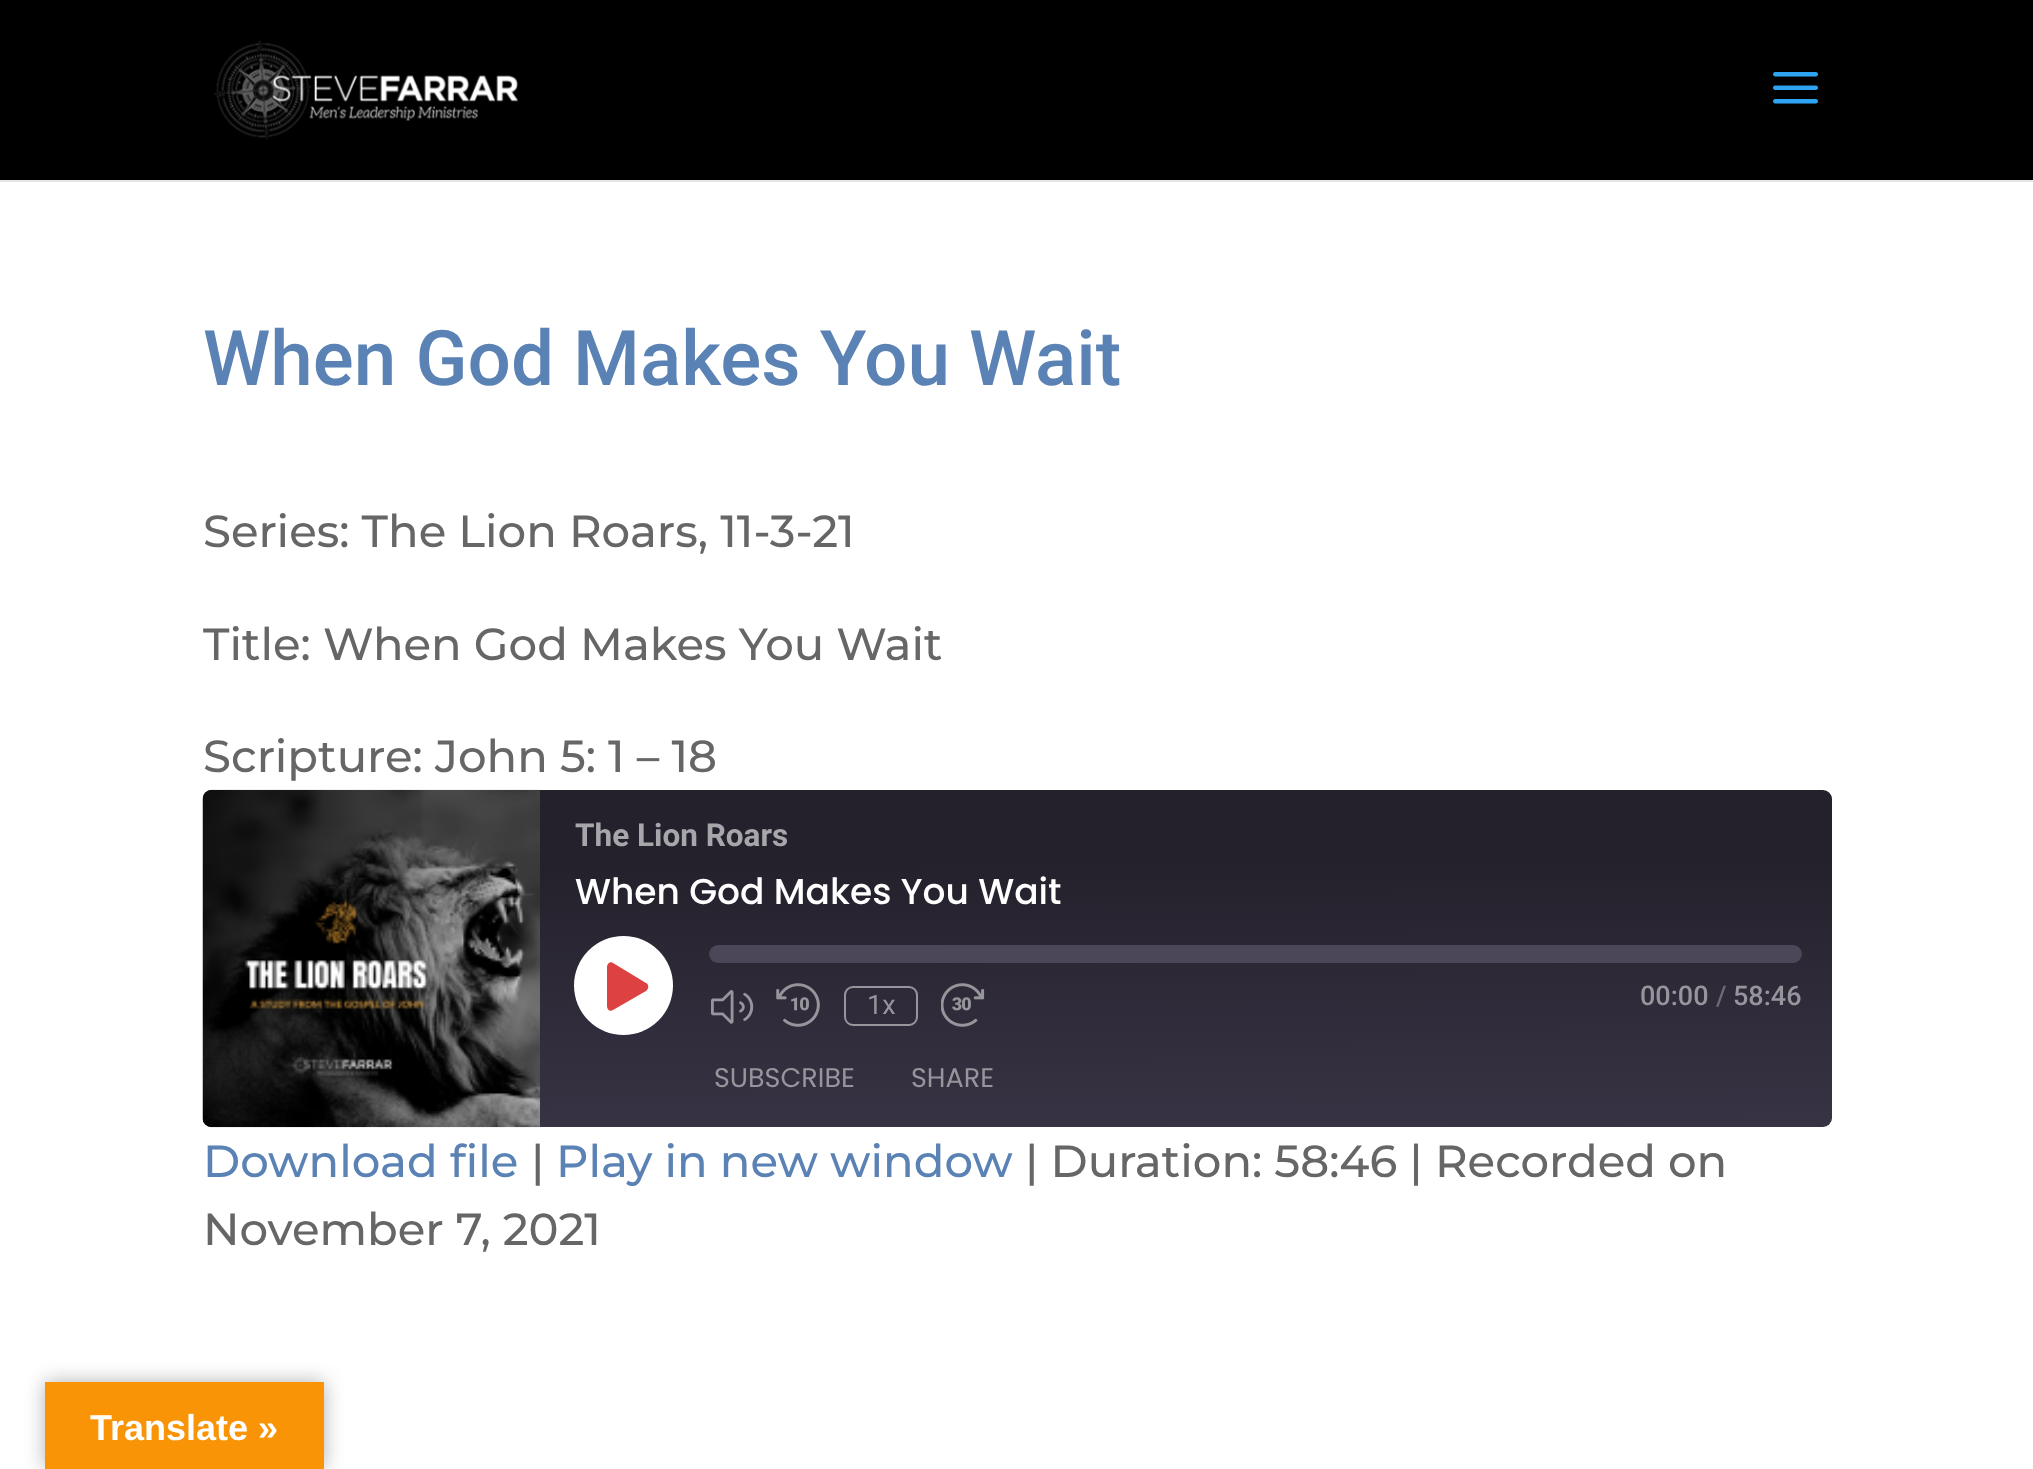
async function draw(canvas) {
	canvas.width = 2033;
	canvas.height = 1469;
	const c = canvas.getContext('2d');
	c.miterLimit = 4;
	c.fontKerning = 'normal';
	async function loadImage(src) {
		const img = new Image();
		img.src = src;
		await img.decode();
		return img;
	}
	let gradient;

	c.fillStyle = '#fff';
	c.fillRect(0, 0, 2033, 1469);
	c.fillStyle = '#e6e6e6';
	c.fillRect(0, 180, 2033, 2);
	c.fillStyle = '#000';
	c.fillRect(0, 0, 2033, 180);
	c.drawImage(await loadImage('img1.png'), 214, 40, 304, 100);
	c.drawImage(await loadImage('img2.png'), 1773, 72, 45, 32);
	c.font = '500 76.5px Roboto';
	c.fillStyle = '#5a82b4';
	c.fillText('When God Makes You Wait', 203, 385);
	c.font = '500 45px Montserrat';
	c.fillStyle = '#666';
	for (const [text, x, y] of [
		['Series: The Lion Roars, 11-3-21', 203, 547],
		['Title: When God Makes You Wait', 203, 660],
		['Scripture: John 5: 1 – 18', 203, 772],
	]) {
		c.fillText(text, x, y);
	}
	gradient = c.createLinearGradient(1018, 1132, 1016, 785);
	gradient.addColorStop(0.01, '#383344');
	gradient.addColorStop(0.78, '#24212c');
	c.fillStyle = gradient;
	c.beginPath();
	c.roundRect(203, 790, 1629, 337, 9);
	c.fill();
	c.drawImage(await loadImage('img3.png'), 202, 789, 338, 339);
	c.font = 'bold 31.5px Roboto';
	c.fillStyle = '#a7a6ab';
	c.fillText('The Lion Roars', 575, 846);
	c.font = '500 36px Poppins';
	c.fillStyle = '#fff';
	c.fillText('When God Makes You Wait', 575, 904);
	c.beginPath();
	c.arc(623.5, 985.5, 49.5, 0, 2 * Math.PI);
	c.fill();
	c.fillStyle = '#dd4142';
	c.beginPath();
	c.moveTo(646, 983);
	c.lineTo(613, 963);
	c.bezierCurveTo(611, 961, 607, 963, 607, 967);
	c.lineTo(607, 1006);
	c.bezierCurveTo(607, 1010, 610, 1012, 613, 1010);
	c.lineTo(646, 991);
	c.bezierCurveTo(649, 989, 649, 984, 646, 983);
	c.closePath();
	c.fill();
	c.fillStyle = '#4c4659';
	c.beginPath();
	c.roundRect(709, 945, 1093, 18, 9);
	c.fill();
	c.drawImage(await loadImage('img4.png'), 711, 990, 43, 34);
	c.drawImage(await loadImage('img5.png'), 776, 983, 44, 44);
	c.beginPath();
	c.roundRect(845, 987, 72, 38, 8);
	c.strokeStyle = '#ffffff80';
	c.lineWidth = 2;
	c.stroke();
	c.font = '27px Roboto';
	c.fillStyle = '#97959c';
	c.fillText('1x', 867, 1014);
	c.drawImage(await loadImage('img6.png'), 941, 983, 44, 44);
	c.font = '500 27px Roboto';
	c.fillText('00:00', 1640, 1005);
	c.fillStyle = '#6d6a74';
	c.fillText('/', 1716, 1005);
	c.fillStyle = '#97959c';
	c.fillText('58:46', 1733, 1005);
	c.font = '27px Poppins';
	c.fillText('SUBSCRIBE', 714, 1087);
	c.fillText('SHARE', 911, 1087);
	c.font = '500 45px Montserrat';
	c.fillStyle = '#5a82b4';
	c.fillText('Download file', 203, 1177);
	c.fillStyle = '#666';
	c.fillText('|', 531, 1177);
	c.fillStyle = '#5a82b4';
	c.fillText('Play in new window', 556, 1177);
	c.fillStyle = '#666';
	c.fillText('| Duration: 58:46 | Recorded on', 1025, 1177);
	c.fillText('November 7, 2021', 203, 1245);
	c.fillStyle = '#0000004d';
	c.filter = 'blur(10px)';
	c.beginPath();
	c.rect(45, 1382, 279, 87);
	c.fill();
	c.filter = 'none';
	c.fillStyle = '#f89406';
	c.fillRect(45, 1382, 279, 87);
	c.font = 'bold 36px Liberation Sans';
	c.fillStyle = '#fff';
	c.fillText('Translate »', 90, 1440);
}

draw(document.querySelector('canvas'));
